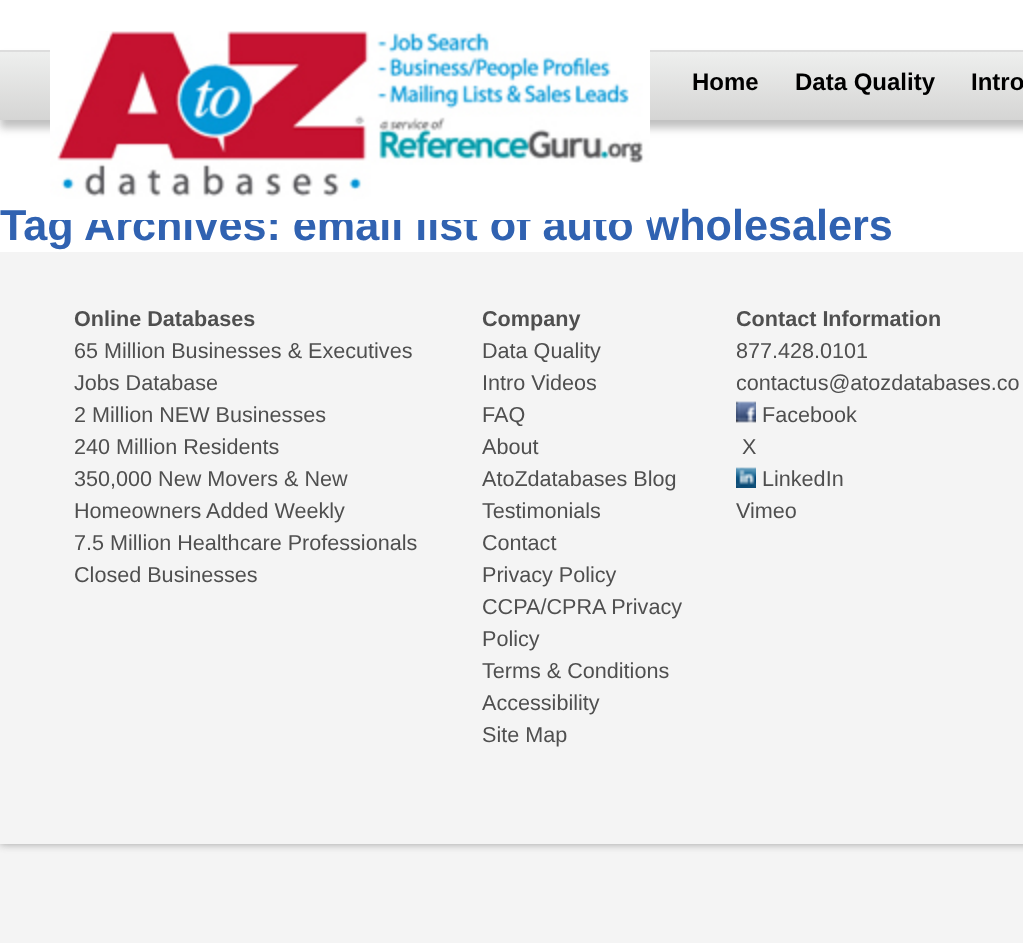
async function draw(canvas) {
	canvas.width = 1023;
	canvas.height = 943;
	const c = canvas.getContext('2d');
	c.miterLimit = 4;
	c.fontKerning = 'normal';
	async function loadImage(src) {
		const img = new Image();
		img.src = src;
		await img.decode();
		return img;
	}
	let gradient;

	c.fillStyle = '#f4f4f4';
	c.fillRect(0, 0, 1023, 943);
	c.fillStyle = '#9c9c9c';
	c.filter = 'blur(4px)';
	c.beginPath();
	c.rect(0, 0, 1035, 844);
	c.fill();
	c.filter = 'none';
	c.fillStyle = '#fff';
	c.fillRect(0, 0, 1023, 252);
	c.fillStyle = '#c0c0c0';
	c.filter = 'blur(4px)';
	c.beginPath();
	c.rect(0, 58, 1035, 70);
	c.fill();
	c.filter = 'none';
	gradient = c.createLinearGradient(1004, 52, 1004, 120);
	gradient.addColorStop(0, '#eeefee');
	gradient.addColorStop(1, '#d5d5d4');
	c.fillStyle = gradient;
	c.fillRect(0, 52, 1023, 68);
	c.fillStyle = '#ddd';
	c.fillRect(0, 50, 1023, 2);
	c.font = 'bold 43.2px Liberation Sans';
	c.fillStyle = '#3062b1';
	c.fillText('Tag Archives: email list of auto wholesalers', 0, 240);
	c.drawImage(await loadImage('img1.png'), 50, 31, 600, 189);
	c.font = 'bold 24px Liberation Sans';
	c.fillStyle = '#000';
	for (const [text, x, y] of [
		['Home', 692, 90],
		['Data Quality', 795, 90],
		['Intro', 971, 90],
	]) {
		c.fillText(text, x, y);
	}
	c.fillStyle = '#f4f4f4';
	c.fillRect(0, 252, 1023, 592);
	c.font = 'bold 21.6px Liberation Sans';
	c.fillStyle = '#4f4f4f';
	c.fillText('Online Databases', 74, 326);
	c.font = '21.6px Liberation Sans';
	for (const [text, x, y] of [
		['65 Million Businesses & Executives', 74, 358],
		['Jobs Database', 74, 390],
		['2 Million NEW Businesses', 74, 422],
		['240 Million Residents', 74, 454],
		['350,000 New Movers & New', 74, 486],
		['Homeowners Added Weekly', 74, 518],
		['7.5 Million Healthcare Professionals', 74, 550],
		['Closed Businesses', 74, 582],
	]) {
		c.fillText(text, x, y);
	}
	c.font = 'bold 21.6px Liberation Sans';
	c.fillText('Company', 482, 326);
	c.font = '21.6px Liberation Sans';
	for (const [text, x, y] of [
		['Data Quality', 482, 358],
		['Intro Videos', 482, 390],
		['FAQ', 482, 422],
		['About', 482, 454],
		['AtoZdatabases Blog', 482, 486],
		['Testimonials', 482, 518],
		['Contact', 482, 550],
		['Privacy Policy', 482, 582],
		['CCPA/CPRA Privacy', 482, 614],
		['Policy', 482, 646],
		['Terms & Conditions', 482, 678],
		['Accessibility', 482, 710],
		['Site Map', 482, 742],
	]) {
		c.fillText(text, x, y);
	}
	c.font = 'bold 21.6px Liberation Sans';
	c.fillText('Contact Information', 736, 326);
	c.font = '21.6px Liberation Sans';
	c.fillText('877.428.0101', 736, 358);
	c.fillText('contactus@atozdatabases.co', 736, 390);
	c.drawImage(await loadImage('img2.png'), 736, 401, 20, 22);
	c.fillText('Facebook', 762, 422);
	c.fillText('X', 742, 454);
	c.drawImage(await loadImage('img3.png'), 736, 467, 20, 21);
	c.fillText('LinkedIn', 762, 486);
	c.fillText('Vimeo', 736, 518);
}

draw(document.querySelector('canvas'));
